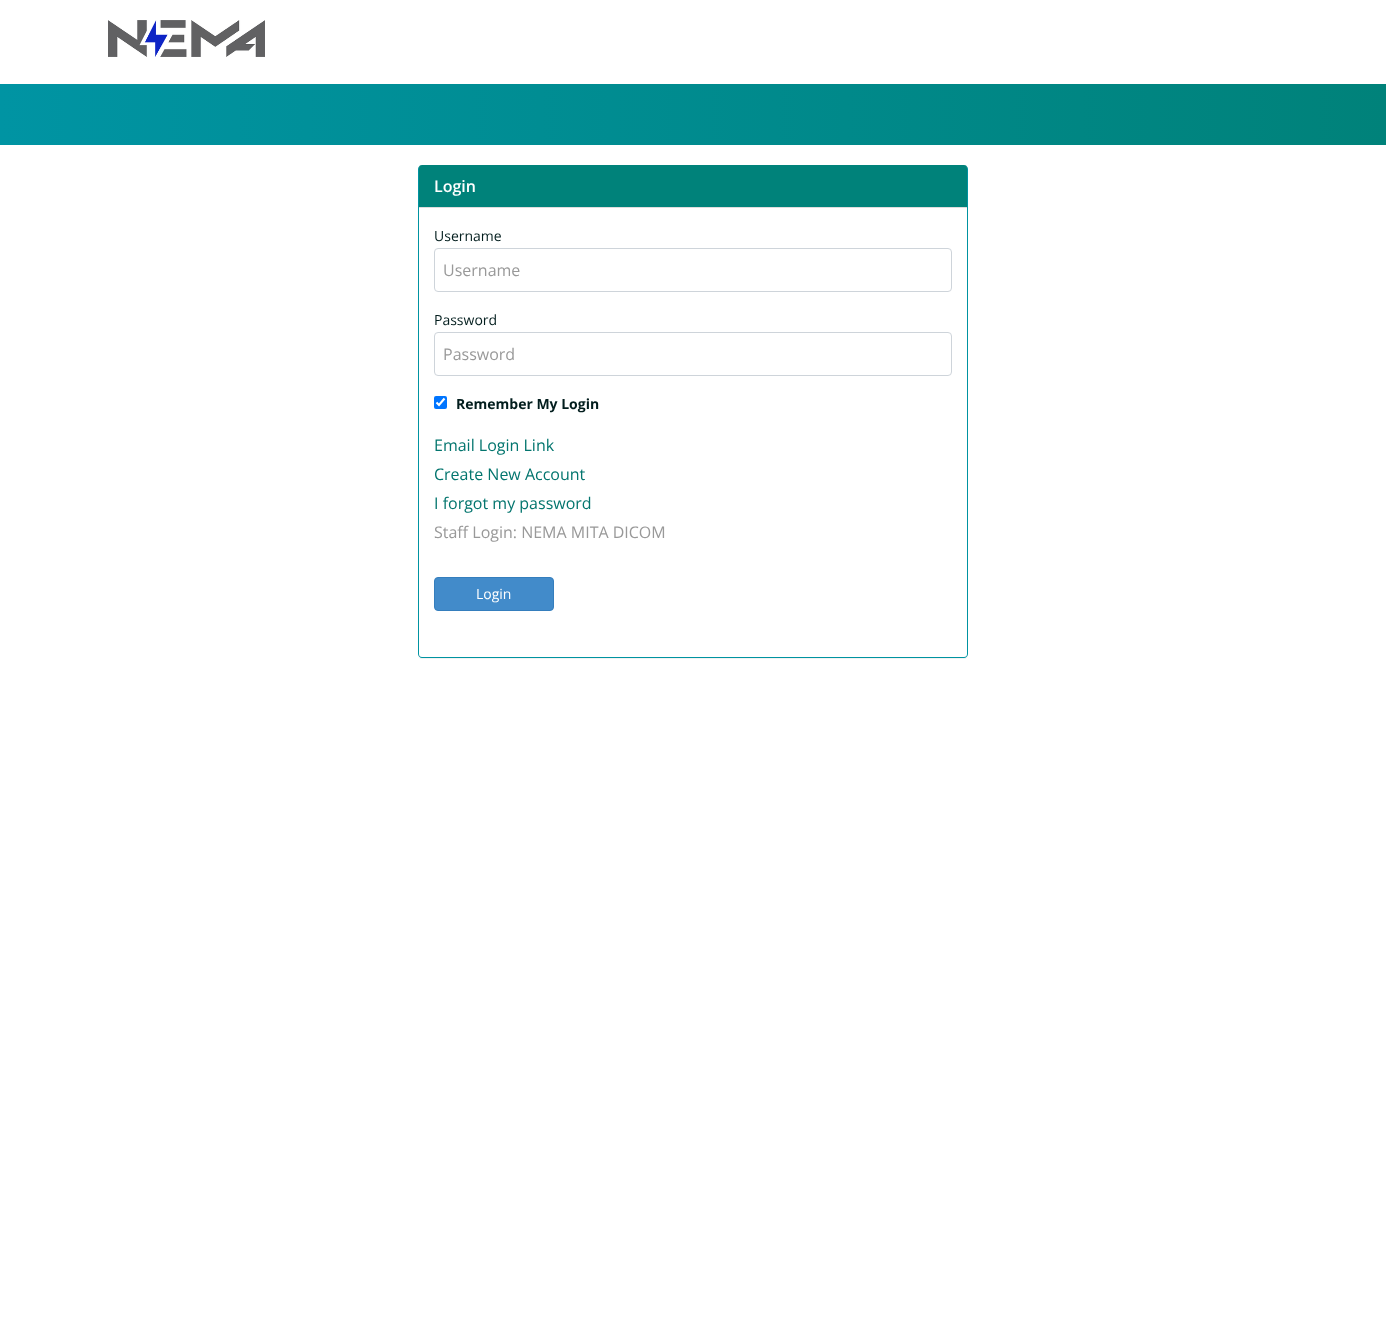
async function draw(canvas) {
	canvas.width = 1386;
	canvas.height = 1325;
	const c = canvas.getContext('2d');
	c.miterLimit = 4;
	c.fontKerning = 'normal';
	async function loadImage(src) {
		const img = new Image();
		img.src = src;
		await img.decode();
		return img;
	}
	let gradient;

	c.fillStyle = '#fff';
	c.fillRect(0, 0, 1386, 1325);
	c.drawImage(await loadImage('img1.png'), 108, 20, 157, 37);
	gradient = c.createLinearGradient(1386, 114, 0, 115);
	gradient.addColorStop(0, '#00827a');
	gradient.addColorStop(1, '#0094a3');
	c.fillStyle = gradient;
	c.fillRect(0, 84, 1386, 61);
	c.fillStyle = '#0000000d';
	c.filter = 'blur(0.5px)';
	c.beginPath();
	c.roundRect(418, 166, 550, 493, 4);
	c.fill();
	c.filter = 'none';
	c.fillStyle = '#fff';
	c.beginPath();
	c.roundRect(418, 165, 550, 493, 4);
	c.fill();
	c.fillStyle = '#0093a1';
	c.beginPath();
	c.moveTo(422, 165);
	c.lineTo(964, 165);
	c.bezierCurveTo(966, 165, 968, 167, 968, 169);
	c.lineTo(968, 654);
	c.bezierCurveTo(968, 656, 966, 658, 964, 658);
	c.lineTo(422, 658);
	c.bezierCurveTo(420, 658, 418, 656, 418, 654);
	c.lineTo(418, 169);
	c.bezierCurveTo(418, 167, 420, 165, 422, 165);
	c.closePath();
	c.moveTo(422, 165);
	c.lineTo(964, 165);
	c.bezierCurveTo(966, 165, 967, 167, 967, 169);
	c.lineTo(967, 654);
	c.bezierCurveTo(967, 656, 966, 657, 964, 657);
	c.lineTo(422, 657);
	c.bezierCurveTo(420, 657, 419, 656, 419, 654);
	c.lineTo(419, 169);
	c.bezierCurveTo(419, 167, 420, 165, 422, 165);
	c.closePath();
	c.fill('evenodd');
	c.fillStyle = '#00827a';
	c.beginPath();
	c.roundRect(419, 165, 548, 43, [3, 3, 0, 0]);
	c.fill();
	c.fillStyle = '#ddd';
	c.fillRect(419, 207, 548, 1);
	c.font = '600 16px Open Sans';
	c.fillStyle = '#fff';
	c.fillText('Login', 434, 192);
	c.font = '14px Open Sans';
	c.fillStyle = '#021d1d';
	c.fillText('Username', 434, 241);
	c.beginPath();
	c.roundRect(434.5, 248.5, 517, 43, 3.5);
	c.strokeStyle = '#ced4da';
	c.stroke();
	c.font = '16px Open Sans';
	c.fillStyle = '#999';
	c.fillText('Username', 443, 276);
	c.font = '14px Open Sans';
	c.fillStyle = '#021d1d';
	c.fillText('Password', 434, 325);
	c.beginPath();
	c.roundRect(434.5, 332.5, 517, 43, 3.5);
	c.stroke();
	c.font = '16px Open Sans';
	c.fillStyle = '#999';
	c.fillText('Password', 443, 360);
	c.fillStyle = '#0075ff';
	c.beginPath();
	c.roundRect(434, 396, 13, 13, 2);
	c.fill();
	c.beginPath();
	c.moveTo(436.5, 402.5);
	c.lineTo(439, 405);
	c.lineTo(444.5, 398.5);
	c.strokeStyle = '#fff';
	c.lineWidth = 2.1;
	c.stroke();
	c.font = 'bold 14px Open Sans';
	c.fillStyle = '#021d1d';
	c.fillText('Remember My Login', 456, 409);
	c.font = '16px Open Sans';
	c.fillStyle = '#03756e';
	for (const [text, x, y] of [
		['Email Login Link', 434, 451],
		['Create New Account', 434, 480],
		['I forgot my password', 434, 509],
	]) {
		c.fillText(text, x, y);
	}
	c.fillStyle = '#999';
	c.fillText('Staff Login: NEMA MITA DICOM', 434, 538);
	c.fillStyle = '#428bca';
	c.beginPath();
	c.roundRect(434.5, 577.5, 119, 33, 3.5);
	c.fill();
	c.strokeStyle = '#357ebd';
	c.lineWidth = 1;
	c.stroke();
	c.font = '14px Open Sans';
	c.fillStyle = '#fff';
	c.fillText('Login', 476, 599);
}

draw(document.querySelector('canvas'));
